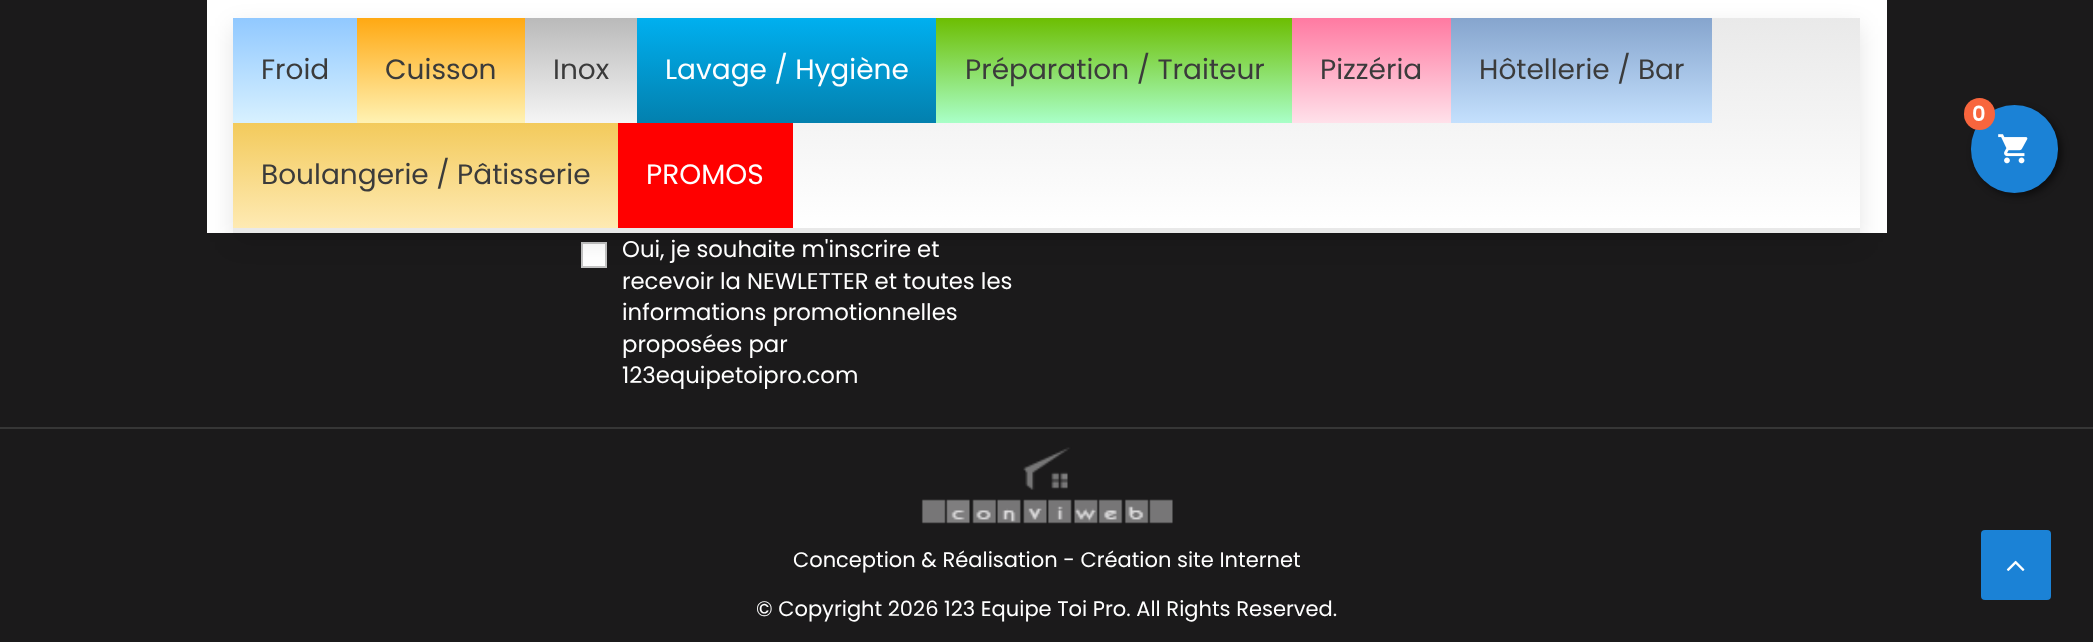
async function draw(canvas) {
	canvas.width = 2093;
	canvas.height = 642;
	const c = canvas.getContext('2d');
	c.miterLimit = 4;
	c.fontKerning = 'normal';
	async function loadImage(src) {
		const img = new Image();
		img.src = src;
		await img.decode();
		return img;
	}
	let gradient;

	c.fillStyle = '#1b1a1b';
	c.fillRect(0, 0, 2093, 642);
	c.fillStyle = '#fff';
	c.fillRect(207, 0, 1680, 233);
	c.beginPath();
	c.rect(582, 243, 24, 24);
	c.fill();
	c.strokeStyle = '#c3c3c3';
	c.lineWidth = 2;
	c.stroke();
	c.fillStyle = '#0000001a';
	c.filter = 'blur(11.5px)';
	c.beginPath();
	c.rect(233, 26, 1627, 216);
	c.fill();
	c.filter = 'none';
	gradient = c.createLinearGradient(1047, 17, 1047, 228);
	gradient.addColorStop(0, '#e9e9e9');
	gradient.addColorStop(1, '#fff');
	c.fillStyle = gradient;
	c.fillRect(793, 18, 1067, 210);
	c.fillStyle = '#e9e9e9';
	c.fillRect(233, 228, 1627, 5);
	gradient = c.createLinearGradient(295, 17, 295, 123);
	gradient.addColorStop(0, '#90c8ff');
	gradient.addColorStop(1, '#d8f1ff');
	c.fillStyle = gradient;
	c.fillRect(233, 18, 124, 105);
	c.font = '28px Poppins';
	c.fillStyle = '#3b3b3b';
	c.fillText('Froid', 261, 79);
	gradient = c.createLinearGradient(441, 17, 441, 123);
	gradient.addColorStop(0, '#ffa811');
	gradient.addColorStop(1, '#fff2b3');
	c.fillStyle = gradient;
	c.fillRect(357, 18, 168, 105);
	c.fillStyle = '#3b3b3b';
	c.fillText('Cuisson', 385, 79);
	gradient = c.createLinearGradient(581, 17, 581, 123);
	gradient.addColorStop(0, '#b9b9b9');
	gradient.addColorStop(1, '#f5f5f5');
	c.fillStyle = gradient;
	c.fillRect(525, 18, 112, 105);
	c.fillStyle = '#3b3b3b';
	c.fillText('Inox', 553, 79);
	gradient = c.createLinearGradient(787, 17, 787, 123);
	gradient.addColorStop(0, '#00b0f0');
	gradient.addColorStop(1, '#0380ae');
	c.fillStyle = gradient;
	c.fillRect(637, 18, 299, 105);
	c.fillStyle = '#fff';
	c.fillText('Lavage / Hygiène', 665, 79);
	gradient = c.createLinearGradient(1114, 17, 1114, 123);
	gradient.addColorStop(0, '#6cbd00');
	gradient.addColorStop(1, '#a9ffc8');
	c.fillStyle = gradient;
	c.fillRect(936, 18, 356, 105);
	c.fillStyle = '#3b3b3b';
	c.fillText('Préparation / Traiteur', 965, 79);
	gradient = c.createLinearGradient(1371, 17, 1371, 123);
	gradient.addColorStop(0, '#ff79a1');
	gradient.addColorStop(1, '#ffe1ea');
	c.fillStyle = gradient;
	c.fillRect(1292, 18, 159, 105);
	c.fillStyle = '#3b3b3b';
	c.fillText('Pizzéria', 1320, 79);
	gradient = c.createLinearGradient(1581, 17, 1581, 123);
	gradient.addColorStop(0, '#85a4cd');
	gradient.addColorStop(1, '#c4e0fd');
	c.fillStyle = gradient;
	c.fillRect(1451, 18, 261, 105);
	c.fillStyle = '#3b3b3b';
	c.fillText('Hôtellerie / Bar', 1479, 79);
	gradient = c.createLinearGradient(425, 122, 425, 228);
	gradient.addColorStop(0, '#f3ca5b');
	gradient.addColorStop(1, '#feeab3');
	c.fillStyle = gradient;
	c.fillRect(233, 123, 385, 105);
	c.fillStyle = '#3b3b3b';
	c.fillText('Boulangerie / Pâtisserie', 261, 184);
	c.fillStyle = '#f00';
	c.fillRect(618, 123, 175, 105);
	c.fillStyle = '#fff';
	c.fillText('PROMOS', 646, 184);
	c.fillStyle = '#00000080';
	c.filter = 'blur(3.5px)';
	c.beginPath();
	c.roundRect(1974, 109, 88, 87, 43.5);
	c.fill();
	c.filter = 'none';
	c.fillStyle = '#1b82d6';
	c.beginPath();
	c.roundRect(1971, 105, 87, 88, 43.5);
	c.fill();
	c.fillStyle = '#f8653d';
	c.beginPath();
	c.roundRect(1964, 98, 31, 32, 15.5);
	c.fill();
	c.font = '600 21px Poppins';
	c.fillStyle = '#fff';
	c.fillText('0', 1972, 121);
	c.drawImage(await loadImage('img1.png'), 1998, 134, 30, 30);
	c.font = '22.75px Poppins';
	for (const [text, x, y] of [
		['Oui, je souhaite m\'inscrire et', 622, 257],
		['recevoir la NEWLETTER et toutes les', 622, 289],
		['informations promotionnelles', 622, 320],
		['proposées par', 622, 352],
		['123equipetoipro.com', 622, 383],
	]) {
		c.fillText(text, x, y);
	}
	c.fillStyle = '#1b82d6';
	c.beginPath();
	c.roundRect(1981, 530, 70, 70, 4);
	c.fill();
	c.drawImage(await loadImage('img2.png'), 2006, 560, 19, 11);
	c.fillStyle = '#363636';
	c.fillRect(0, 427, 2093, 2);
	c.drawImage(await loadImage('img3.png'), 921, 447, 252, 77);
	c.font = '21px Poppins';
	c.fillStyle = '#fff';
	c.fillText('Conception & Réalisation - Création site Internet', 793, 567);
	c.fillText('© Copyright 2026 123 Equipe Toi Pro. All Rights Reserved.', 756, 616);
}

draw(document.querySelector('canvas'));
